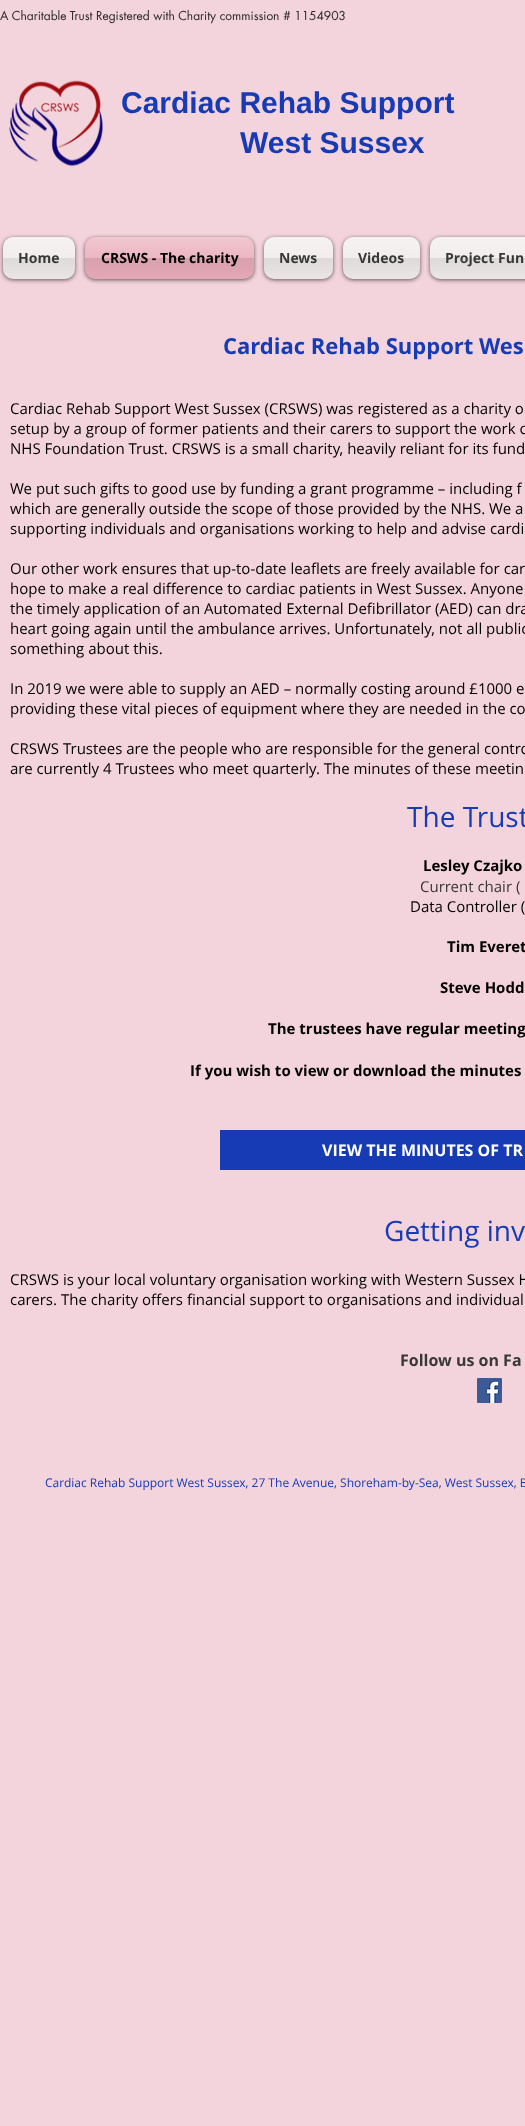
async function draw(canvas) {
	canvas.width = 525;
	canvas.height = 2126;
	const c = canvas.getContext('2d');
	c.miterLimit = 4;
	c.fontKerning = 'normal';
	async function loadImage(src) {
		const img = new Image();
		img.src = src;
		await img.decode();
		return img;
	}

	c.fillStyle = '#f4d4dc';
	c.fillRect(0, 0, 525, 2126);
	c.font = '12px futura';
	c.fillStyle = '#292929';
	c.fillText('A Charitable Trust Registered with Charity commission # 1154903', 0, 20);
	c.drawImage(await loadImage('img1.png'), 9, 80, 94, 87);
	c.font = 'bold 30px Liberation Sans';
	c.fillStyle = '#163bb5';
	c.fillText('Cardiac Rehab Support', 121, 113);
	c.fillText('West Sussex', 240, 153);
	c.fillStyle = '#00000099';
	c.filter = 'blur(2px)';
	c.beginPath();
	c.roundRect(3, 238, 72, 42, 10);
	c.fill();
	c.filter = 'none';
	c.fillStyle = '#f0eceb';
	c.beginPath();
	c.roundRect(3, 237, 72, 42, 10);
	c.fill();
	c.drawImage(await loadImage('img2.png'), 3, 237, 72, 42);
	c.font = 'bold 14px Open Sans';
	c.fillStyle = '#383838';
	c.fillText('Home', 18, 263);
	c.fillStyle = '#00000099';
	c.filter = 'blur(2px)';
	c.beginPath();
	c.roundRect(85, 238, 169, 42, 10);
	c.fill();
	c.filter = 'none';
	c.fillStyle = '#eaadbb';
	c.beginPath();
	c.roundRect(85, 237, 169, 42, 10);
	c.fill();
	c.drawImage(await loadImage('img3.png'), 85, 237, 169, 42);
	c.fillStyle = '#000';
	c.fillText('CRSWS - The charity', 101, 263);
	c.fillStyle = '#00000099';
	c.filter = 'blur(2px)';
	c.beginPath();
	c.roundRect(264, 238, 69, 42, 10);
	c.fill();
	c.filter = 'none';
	c.fillStyle = '#f0eceb';
	c.beginPath();
	c.roundRect(264, 237, 69, 42, 10);
	c.fill();
	c.drawImage(await loadImage('img4.png'), 264, 237, 69, 42);
	c.fillStyle = '#383838';
	c.fillText('News', 279, 263);
	c.fillStyle = '#00000099';
	c.filter = 'blur(2px)';
	c.beginPath();
	c.roundRect(343, 238, 77, 42, 10);
	c.fill();
	c.filter = 'none';
	c.fillStyle = '#f0eceb';
	c.beginPath();
	c.roundRect(343, 237, 77, 42, 10);
	c.fill();
	c.drawImage(await loadImage('img5.png'), 343, 237, 77, 42);
	c.fillStyle = '#383838';
	c.fillText('Videos', 358, 263);
	c.fillStyle = '#00000099';
	c.filter = 'blur(2px)';
	c.beginPath();
	c.roundRect(430, 238, 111, 42, 10);
	c.fill();
	c.filter = 'none';
	c.fillStyle = '#f0eceb';
	c.beginPath();
	c.roundRect(430, 237, 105, 42, 10);
	c.fill();
	c.drawImage(await loadImage('img6.png'), 430, 237, 95, 42);
	c.fillStyle = '#383838';
	c.fillText('Project Fun', 445, 263);
	c.font = 'bold 22px Open Sans';
	c.fillStyle = '#163bb5';
	c.fillText('Cardiac Rehab Support Wes', 223, 354);
	c.font = '15px Open Sans';
	c.fillStyle = '#000';
	for (const [text, x, y] of [
		['Cardiac Rehab Support West Sussex (CRSWS) was registered as a charity o', 10, 414],
		['setup by a group of former patients and their carers to support the work o', 10, 434],
		['NHS Foundation Trust. CRSWS is a small charity, heavily reliant for its fund', 10, 454],
		['We put such gifts to good use by funding a grant programme – including f', 10, 494],
		['which are generally outside the scope of those provided by the NHS. We a', 10, 514],
		['supporting individuals and organisations working to help and advise cardi', 10, 534],
		['Our other work ensures that up-to-date leaflets are freely available for car', 10, 574],
		['hope to make a real difference to cardiac patients in West Sussex. Anyone', 10, 594],
		['the timely application of an Automated External Defibrillator (AED) can dra', 10, 614],
		['heart going again until the ambulance arrives. Unfortunately, not all public', 10, 634],
		['something about this.', 10, 654],
		['In 2019 we were able to supply an AED – normally costing around £1000 e', 10, 694],
		['providing these vital pieces of equipment where they are needed in the co', 10, 714],
		['CRSWS Trustees are the people who are responsible for the general contro', 10, 754],
		['are currently 4 Trustees who meet quarterly. The minutes of these meetin', 10, 774],
	]) {
		c.fillText(text, x, y);
	}
	c.font = '28px Open Sans';
	c.fillStyle = '#163bb5';
	c.fillText('The Trust', 407, 827);
	c.font = 'bold 15px Open Sans';
	c.fillStyle = '#000';
	c.fillText('Lesley Czajko', 423, 871);
	c.font = '15px Open Sans';
	c.fillStyle = '#383838';
	c.fillText('Current chair (', 420, 892);
	c.fillStyle = '#000';
	c.fillText('Data Controller (', 410, 912);
	c.font = 'bold 15px Open Sans';
	for (const [text, x, y] of [
		['Tim Everet', 447, 952],
		['Steve Hodd', 440, 993],
		['The trustees have regular meeting', 268, 1034],
		['If you wish to view or download the minutes', 190, 1076],
	]) {
		c.fillText(text, x, y);
	}
	c.font = '28px Open Sans';
	c.fillStyle = '#163bb5';
	c.fillText('Getting inv', 384, 1241);
	c.font = '15px Open Sans';
	c.fillStyle = '#000';
	c.fillText('CRSWS is your local voluntary organisation working with Western Sussex H', 10, 1285);
	c.fillText('carers. The charity offers financial support to organisations and individual', 10, 1305);
	c.font = 'bold 16px Open Sans';
	c.fillStyle = '#383838';
	c.fillText('Follow us on Fa', 400, 1366);
	c.fillStyle = '#163bb5';
	c.fillRect(220, 1130, 305, 40);
	c.fillStyle = '#fff';
	c.fillText('VIEW THE MINUTES OF TR', 322, 1156);
	c.drawImage(await loadImage('img7.png'), 477, 1378, 25, 25);
	c.font = '12px Open Sans';
	c.fillStyle = '#163bb5';
	c.fillText('Cardiac Rehab Support West Sussex, 27 The Avenue, Shoreham-by-Sea, West Sussex, B', 45, 1487);
}

draw(document.querySelector('canvas'));
